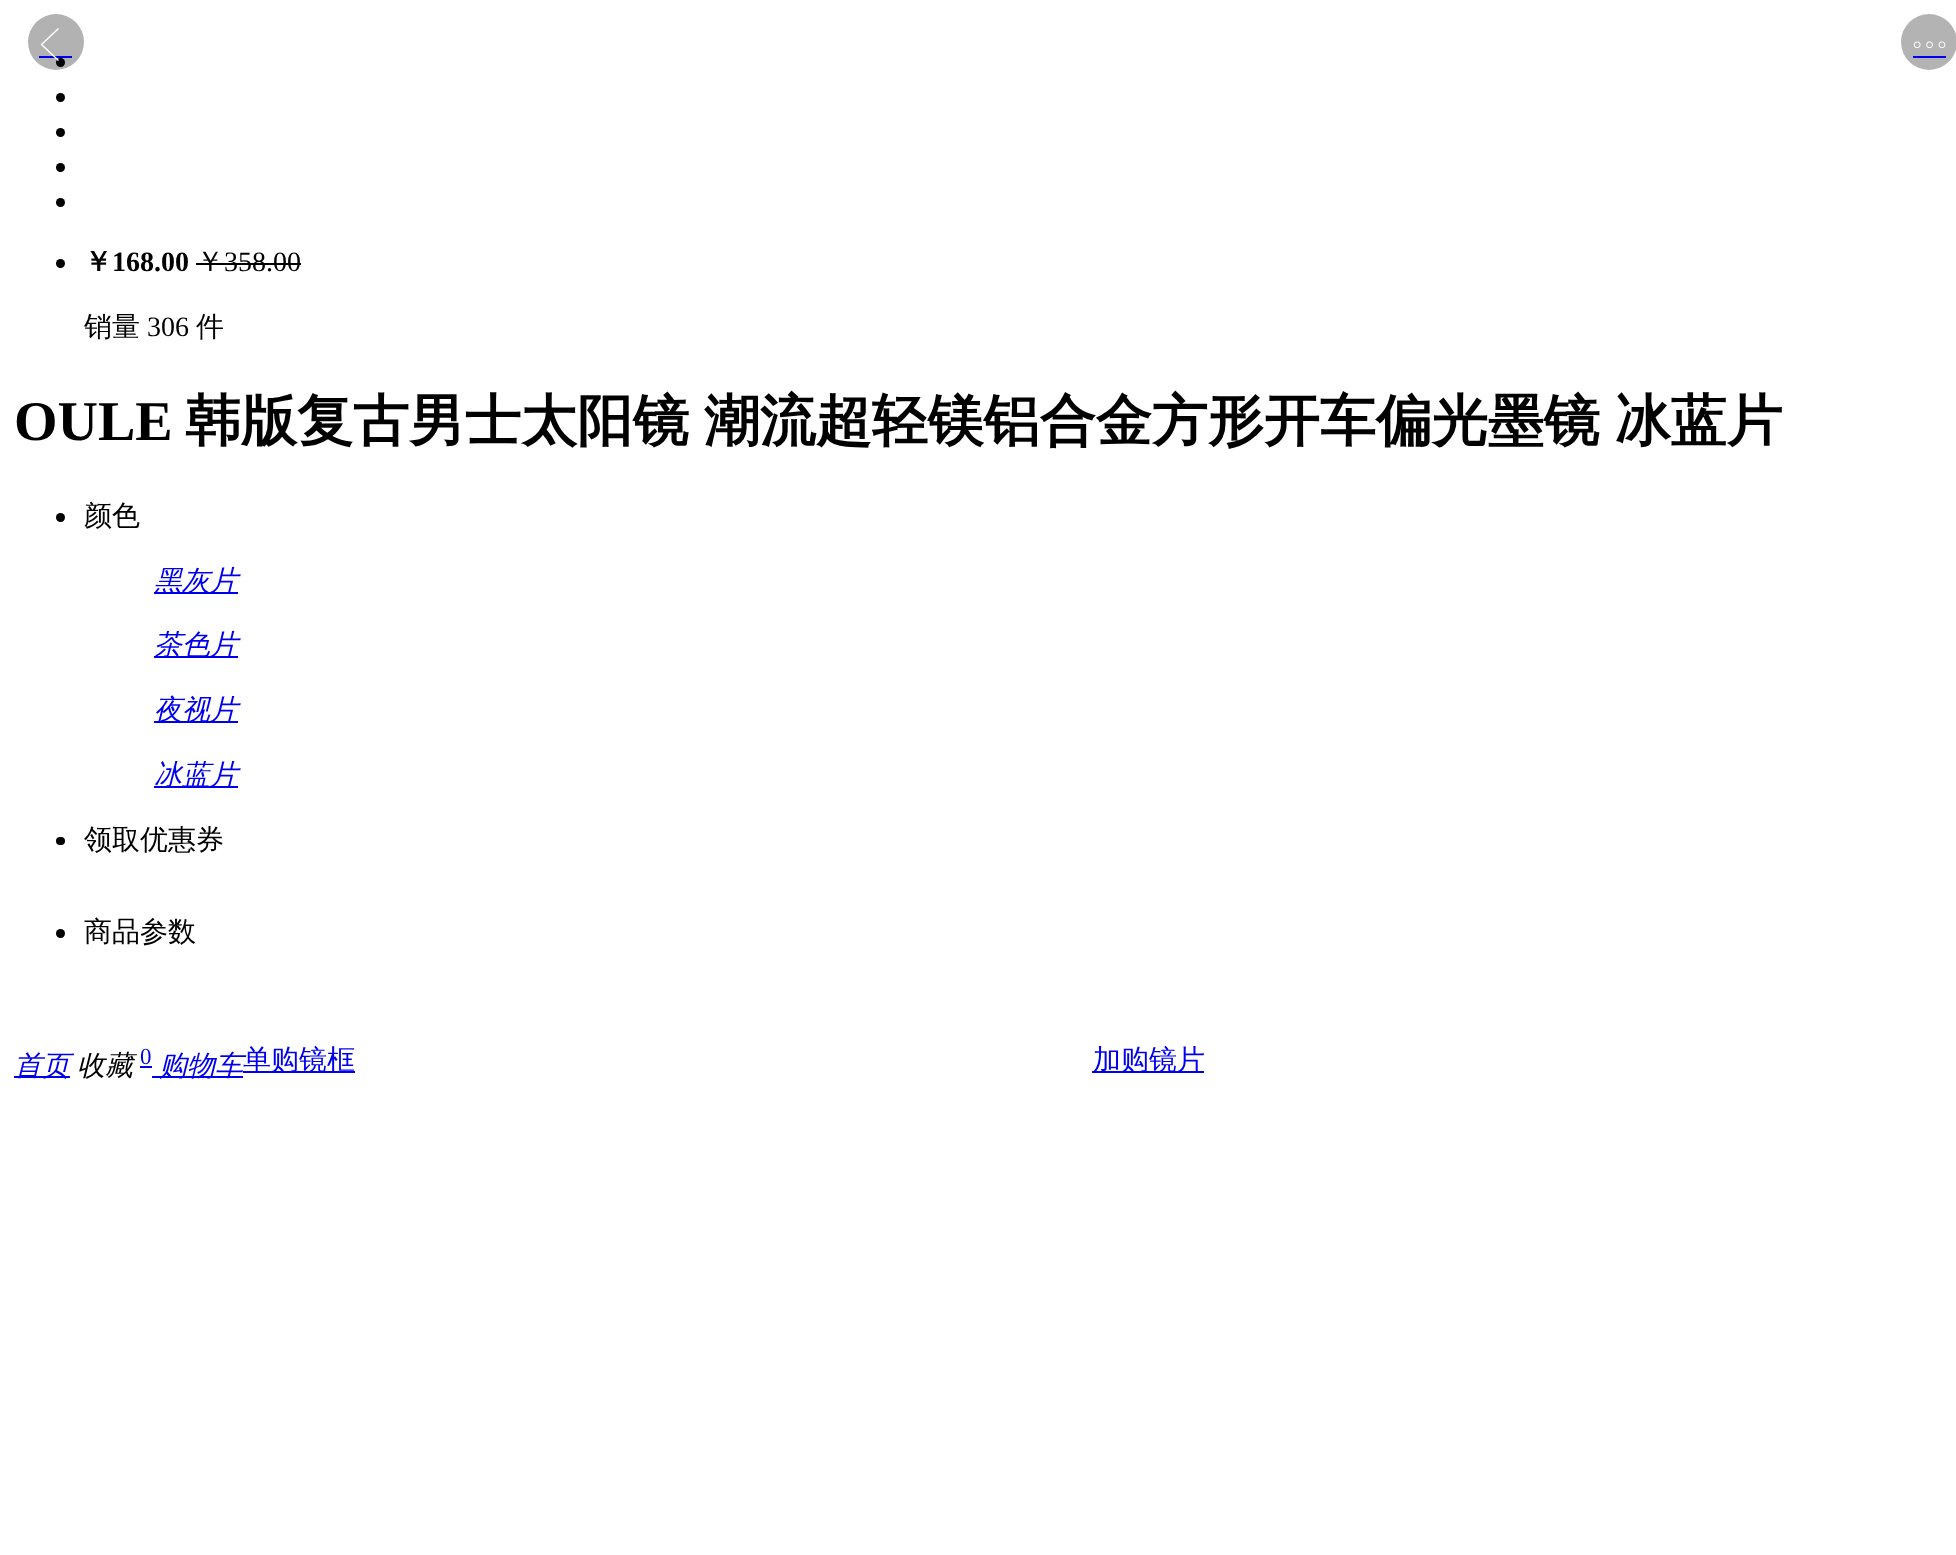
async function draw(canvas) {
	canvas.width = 1956;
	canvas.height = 1555;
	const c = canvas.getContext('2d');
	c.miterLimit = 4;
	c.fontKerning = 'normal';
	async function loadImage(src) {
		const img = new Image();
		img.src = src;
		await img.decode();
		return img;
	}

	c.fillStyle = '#fff';
	c.fillRect(0, 0, 1956, 1555);
	c.fillStyle = '#000';
	c.beginPath();
	c.arc(60.5, 62.5, 4.5, 0, 2 * Math.PI);
	c.fill();
	c.fillStyle = '#0000004d';
	c.beginPath();
	c.arc(56, 42, 28, 0, 2 * Math.PI);
	c.fill();
	c.fillStyle = '#00e';
	c.fillRect(39, 56, 33, 2);
	c.fillStyle = '#fff';
	c.beginPath();
	c.moveTo(58, 61);
	c.lineTo(40.5, 44.5);
	c.lineTo(58, 28);
	c.lineTo(59, 29);
	c.lineTo(42.5, 44.5);
	c.lineTo(59, 60);
	c.closePath();
	c.fill();
	c.fillStyle = '#b3b3b3';
	c.beginPath();
	c.arc(1929, 42, 28, 0, 2 * Math.PI);
	c.fill();
	c.drawImage(await loadImage('img1.png'), 1913, 41, 33, 8);
	c.fillStyle = '#00e';
	c.fillRect(1913, 56, 33, 2);
	c.fillStyle = '#000';
	c.beginPath();
	c.arc(60.5, 97.5, 4.5, 0, 2 * Math.PI);
	c.fill();
	c.beginPath();
	c.arc(60.5, 132.5, 4.5, 0, 2 * Math.PI);
	c.fill();
	c.beginPath();
	c.arc(60.5, 167.5, 4.5, 0, 2 * Math.PI);
	c.fill();
	c.beginPath();
	c.arc(60.5, 202.5, 4.5, 0, 2 * Math.PI);
	c.fill();
	c.beginPath();
	c.arc(60.5, 263.5, 4.5, 0, 2 * Math.PI);
	c.fill();
	c.font = 'bold 28px WenQuanYi Zen Hei';
	c.fillText('￥', 84, 271);
	c.font = 'bold 28px Liberation Serif';
	c.fillText('168.00', 112, 271);
	c.font = '500 28px WenQuanYi Zen Hei';
	c.fillText('￥', 196, 271);
	c.font = '28px Liberation Serif';
	c.fillText('358.00', 224, 271);
	c.fillRect(196, 263, 105, 2);
	c.font = '500 28px WenQuanYi Zen Hei';
	c.fillText('销量', 84, 336);
	c.font = '28px Liberation Serif';
	c.fillText('306', 147, 336);
	c.font = '500 28px WenQuanYi Zen Hei';
	c.fillText('件', 196, 336);
	c.font = 'bold 56px Liberation Serif';
	c.fillText('OULE', 14, 440);
	c.wordSpacing = '-2px';
	c.font = 'bold 56px WenQuanYi Zen Hei';
	c.fillText('韩版复古男士太阳镜 潮流超轻镁铝合金方形开车偏光墨镜 冰蓝片', 185, 440);
	c.beginPath();
	c.arc(60.5, 517.5, 4.5, 0, 2 * Math.PI);
	c.fill();
	c.wordSpacing = '0px';
	c.font = '500 28px WenQuanYi Zen Hei';
	c.fillText('颜色', 84, 525);
	c.fillStyle = '#00e';
	c.fillRect(154, 592, 84, 2);
	c.font = 'italic 500 28px WenQuanYi Zen Hei';
	c.fillText('黑灰片', 154, 590);
	c.fillRect(154, 656, 84, 2);
	c.fillText('茶色片', 154, 654);
	c.fillRect(154, 721, 84, 2);
	c.fillText('夜视片', 154, 719);
	c.fillRect(154, 786, 84, 2);
	c.fillText('冰蓝片', 154, 784);
	c.fillStyle = '#000';
	c.beginPath();
	c.roundRect(56, 837, 9, 8, 4);
	c.fill();
	c.font = '500 28px WenQuanYi Zen Hei';
	c.fillText('领取优惠券', 84, 849);
	c.beginPath();
	c.arc(60.5, 933.5, 4.5, 0, 2 * Math.PI);
	c.fill();
	c.fillText('商品参数', 84, 941);
	c.fillStyle = '#00e';
	c.fillRect(14, 1076, 56, 2);
	c.font = 'italic 500 28px WenQuanYi Zen Hei';
	c.fillText('首页', 14, 1075);
	c.fillStyle = '#000';
	c.fillText('收藏', 77, 1075);
	c.font = '23px Liberation Serif';
	c.fillStyle = '#00e';
	c.fillText('0', 140, 1064);
	c.fillRect(152, 1076, 91, 2);
	c.font = 'italic 500 28px WenQuanYi Zen Hei';
	c.fillText('购物车', 159, 1075);
	c.fillRect(140, 1066, 12, 2);
	c.fillRect(243, 1071, 112, 2);
	c.font = '500 28px WenQuanYi Zen Hei';
	c.fillText('单购镜框', 243, 1069);
	c.fillRect(1092, 1071, 112, 2);
	c.fillText('加购镜片', 1093, 1069);
}

draw(document.querySelector('canvas'));
